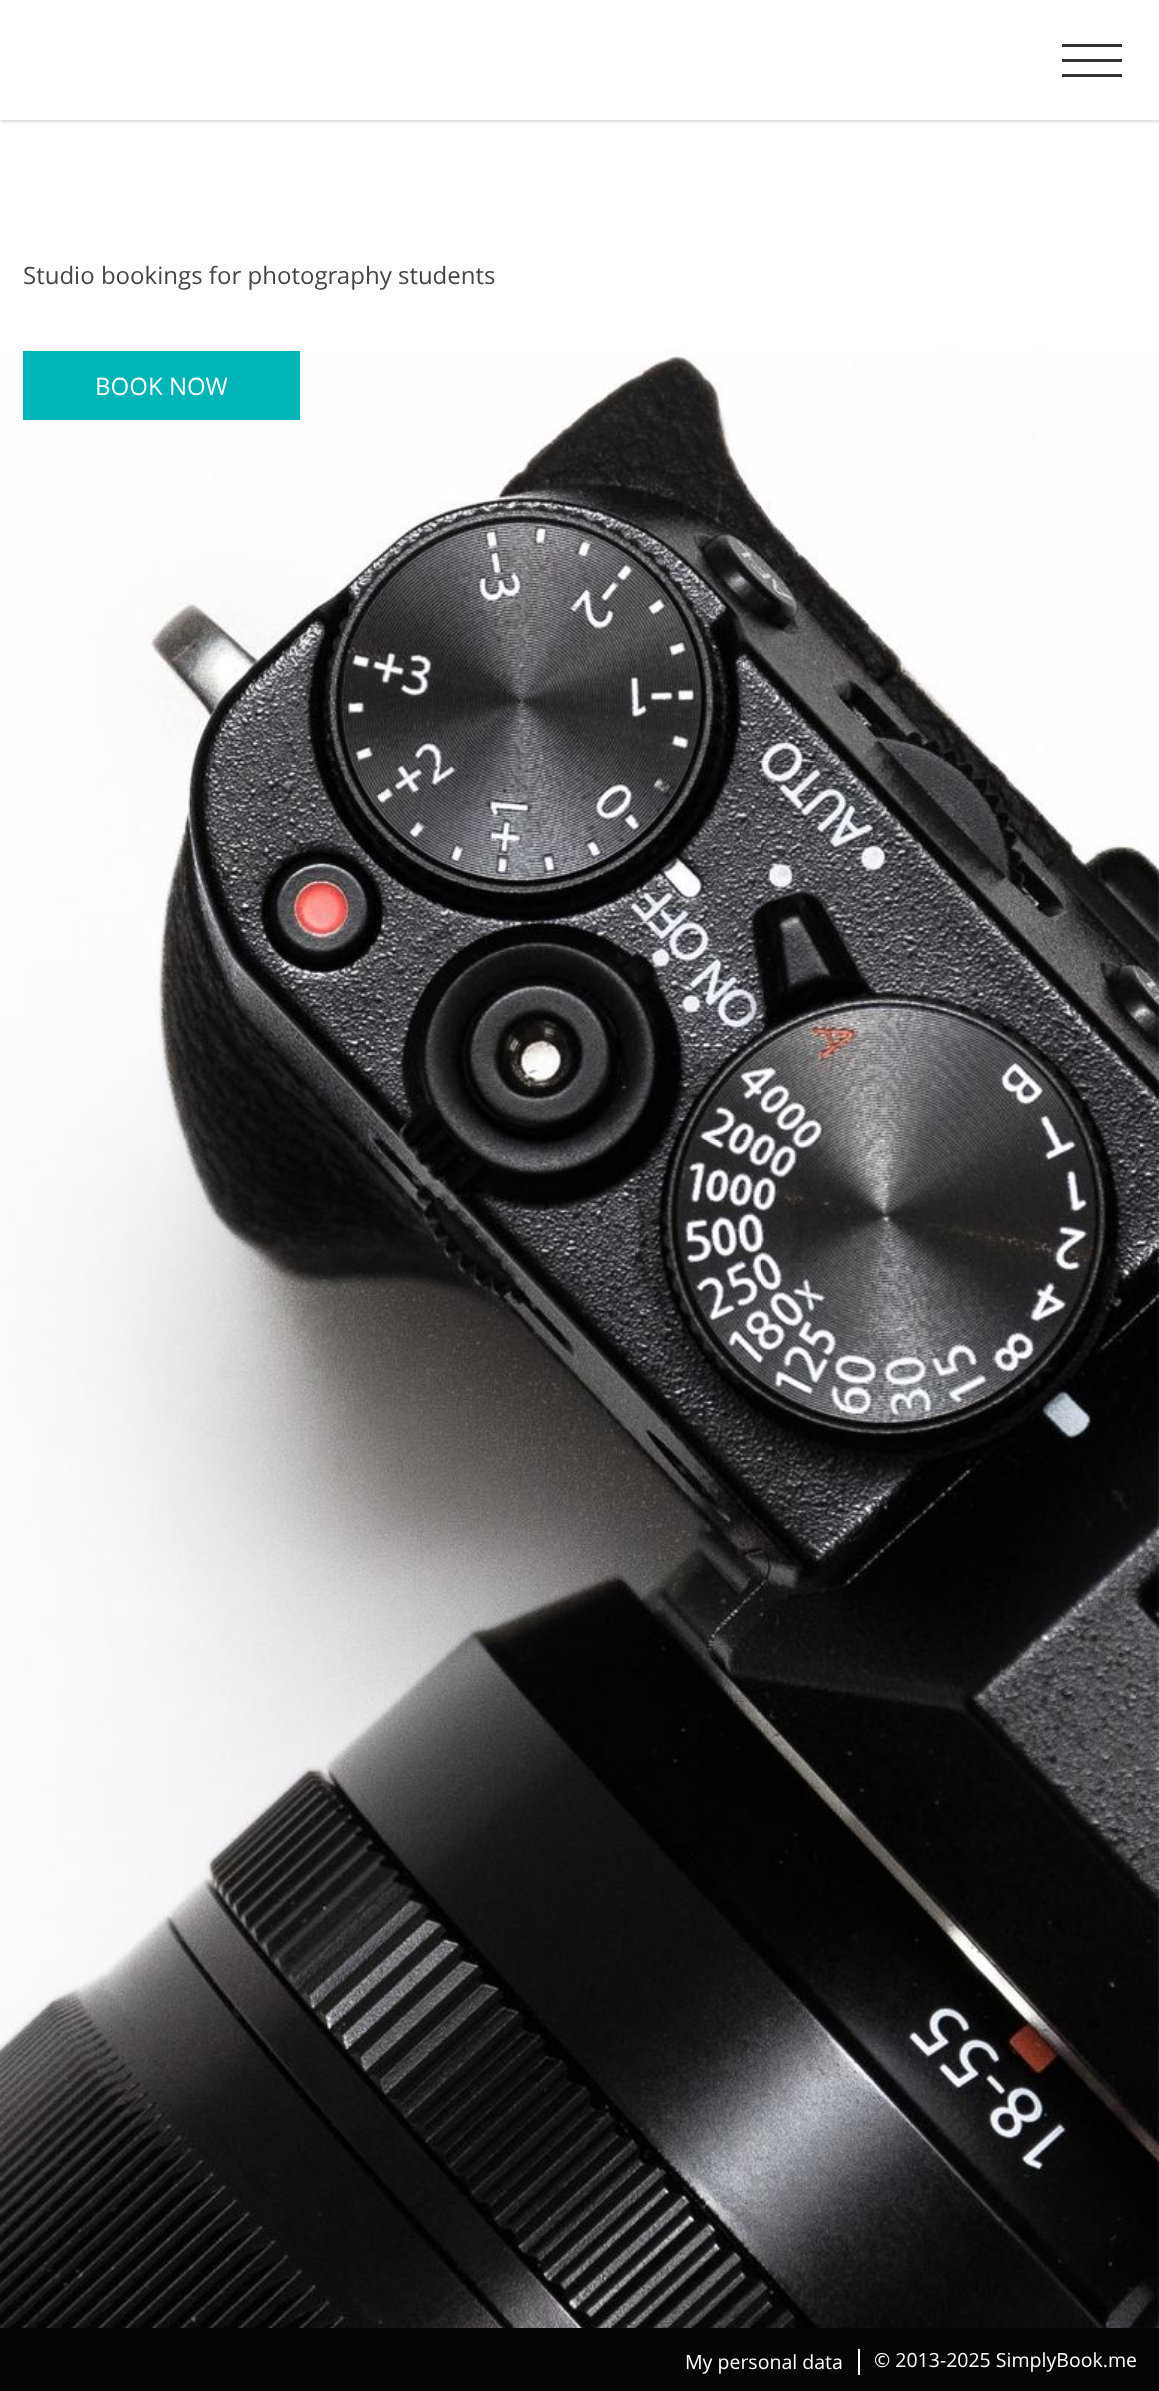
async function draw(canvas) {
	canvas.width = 1159;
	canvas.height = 2391;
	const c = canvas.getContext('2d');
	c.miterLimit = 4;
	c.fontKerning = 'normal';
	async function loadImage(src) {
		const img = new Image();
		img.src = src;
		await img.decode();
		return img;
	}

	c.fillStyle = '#fff';
	c.fillRect(0, 0, 1159, 2391);
	c.drawImage(await loadImage('img1.png'), 0, 350, 1159, 1978);
	c.save();
	c.beginPath();
	c.rect(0, 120, 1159, 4);
	c.clip();
	c.fillStyle = '#00000026';
	c.filter = 'blur(1.5px)';
	c.beginPath();
	c.rect(0, 2, 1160, 120);
	c.fill();
	c.filter = 'none';
	c.restore();
	for (const [x, y, w, h, color] of [
		[1062, 59, 60, 3, '#333'],
		[1062, 44, 60, 3, '#333'],
		[1062, 74, 60, 3, '#333'],
	]) {
		c.fillStyle = color;
		c.fillRect(x, y, w, h);
	}
	c.font = '24px Open Sans';
	c.fillStyle = '#454545';
	c.fillText('Studio bookings for photography students', 23, 284);
	c.fillStyle = '#00b5b8';
	c.fillRect(23, 351, 277, 69);
	c.fillStyle = '#fff';
	c.fillText('BOOK NOW', 95, 395);
	c.fillStyle = '#050505';
	c.fillRect(0, 2328, 1159, 63);
	c.fillStyle = '#fff';
	c.fillRect(858, 2349, 2, 26);
	c.font = '19.5px Open Sans';
	c.fillText('My personal data', 685, 2369);
	c.fillText('© 2013-2025 SimplyBook.me', 874, 2367);
}

draw(document.querySelector('canvas'));
